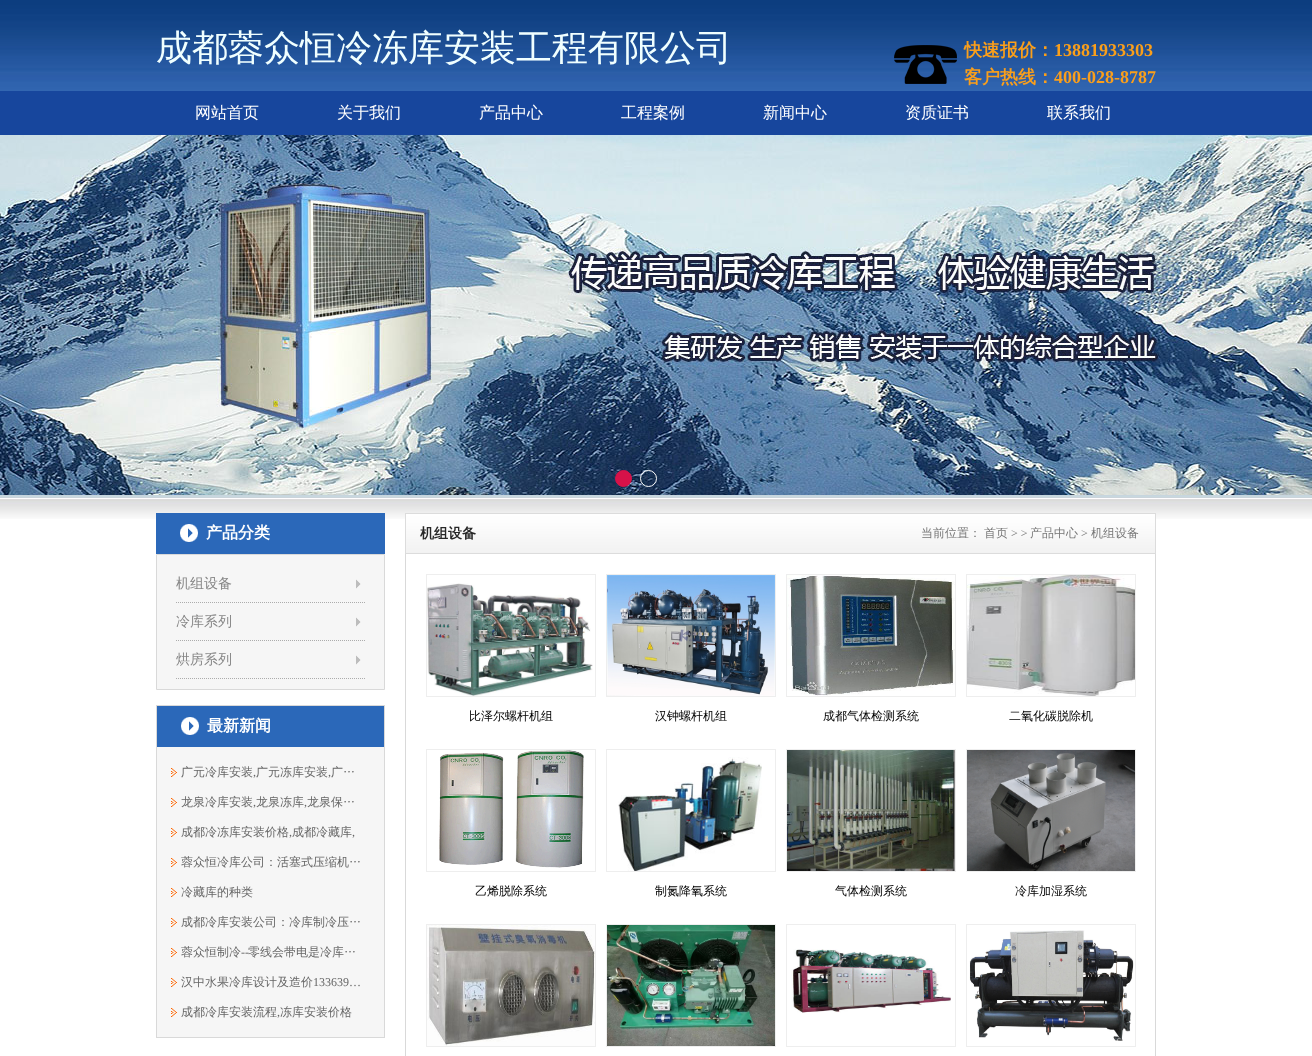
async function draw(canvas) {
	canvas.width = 1312;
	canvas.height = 1056;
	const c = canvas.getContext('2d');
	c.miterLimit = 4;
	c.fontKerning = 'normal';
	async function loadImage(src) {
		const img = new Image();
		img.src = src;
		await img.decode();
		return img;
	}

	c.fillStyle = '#fff';
	c.fillRect(0, 0, 1312, 1056);
	c.drawImage(await loadImage('img1.png'), 0, 0, 1312, 519);
	c.font = '500 36px WenQuanYi Zen Hei';
	c.fillStyle = '#f0ffff';
	c.fillText('成都蓉众恒冷冻库安装工程有限公司', 156, 60);
	c.drawImage(await loadImage('img2.png'), 894, 45, 63, 39);
	c.font = 'bold 18px WenQuanYi Zen Hei';
	c.fillStyle = '#fa9f1b';
	c.fillText('快速报价：', 964, 56);
	c.font = 'bold 18px Liberation Serif';
	c.fillText('13881933303', 1054, 56);
	c.font = 'bold 18px WenQuanYi Zen Hei';
	c.fillText('客户热线：', 964, 83);
	c.font = 'bold 18px Liberation Serif';
	c.fillText('400-028-8787', 1054, 83);
	c.fillStyle = '#17469d';
	c.fillRect(0, 91, 1312, 44);
	c.font = '500 16px WenQuanYi Zen Hei';
	c.fillStyle = '#fff';
	for (const [text, x, y] of [
		['网站首页', 195, 118],
		['关于我们', 337, 118],
		['产品中心', 479, 118],
		['工程案例', 621, 118],
		['新闻中心', 763, 118],
		['资质证书', 905, 118],
		['联系我们', 1047, 118],
	]) {
		c.fillText(text, x, y);
	}
	c.drawImage(await loadImage('img3.png'), 0, 135, 1312, 360);
	c.fillStyle = '#d71249';
	c.beginPath();
	c.arc(623.5, 478.5, 8, 0, 2 * Math.PI);
	c.fill();
	c.strokeStyle = '#d71249';
	c.stroke();
	c.beginPath();
	c.arc(648.5, 478.5, 8, 0, 2 * Math.PI);
	c.strokeStyle = '#fff';
	c.stroke();
	c.drawImage(await loadImage('img4.png'), 156, 513, 229, 41);
	c.font = 'bold 16px WenQuanYi Zen Hei';
	c.fillStyle = '#fff';
	c.fillText('产品分类', 206, 538);
	c.fillStyle = '#f6f6f6';
	c.beginPath();
	c.rect(156.5, 554.5, 228, 135);
	c.fill();
	c.strokeStyle = '#d9d9d9';
	c.stroke();
	c.drawImage(await loadImage('img5.png'), 356, 579, 5, 10);
	c.beginPath();
	c.moveTo(176, 602.5);
	c.lineTo(365, 602.5);
	c.strokeStyle = '#acacac';
	c.setLineDash([1, 1]);
	c.stroke();
	c.font = '500 14px WenQuanYi Zen Hei';
	c.fillStyle = '#878787';
	c.fillText('机组设备', 176, 588);
	c.drawImage(await loadImage('img5.png'), 356, 617, 5, 10);
	c.beginPath();
	c.moveTo(176, 640.5);
	c.lineTo(365, 640.5);
	c.stroke();
	c.fillText('冷库系列', 176, 626);
	c.drawImage(await loadImage('img5.png'), 356, 655, 5, 10);
	c.beginPath();
	c.moveTo(176, 678.5);
	c.lineTo(365, 678.5);
	c.stroke();
	c.fillText('烘房系列', 176, 664);
	c.fillStyle = '#f6f6f6';
	c.fillRect(157, 747, 227, 290);
	c.strokeStyle = '#d9d9d9';
	c.setLineDash([]);
	c.strokeRect(156.5, 705.5, 228, 332);
	c.drawImage(await loadImage('img6.png'), 157, 706, 227, 41);
	c.font = 'bold 16px WenQuanYi Zen Hei';
	c.fillStyle = '#fff';
	c.fillText('最新新闻', 207, 731);
	c.drawImage(await loadImage('img7.png'), 171, 768, 6, 9);
	c.font = '500 12px WenQuanYi Zen Hei';
	c.fillStyle = '#666';
	c.fillText('广元冷库安装', 181, 776);
	c.font = '12px Liberation Serif';
	c.fillText(',', 253, 776);
	c.font = '500 12px WenQuanYi Zen Hei';
	c.fillText('广元冻库安装', 256, 776);
	c.font = '12px Liberation Serif';
	c.fillText(',', 328, 776);
	c.font = '500 12px WenQuanYi Zen Hei';
	c.fillText('广…', 331, 776);
	c.drawImage(await loadImage('img7.png'), 171, 798, 6, 9);
	c.fillText('龙泉冷库安装', 181, 806);
	c.font = '12px Liberation Serif';
	c.fillText(',', 253, 806);
	c.font = '500 12px WenQuanYi Zen Hei';
	c.fillText('龙泉冻库', 256, 806);
	c.font = '12px Liberation Serif';
	c.fillText(',', 304, 806);
	c.font = '500 12px WenQuanYi Zen Hei';
	c.fillText('龙泉保…', 307, 806);
	c.drawImage(await loadImage('img7.png'), 171, 828, 6, 9);
	c.fillText('成都冷冻库安装价格', 181, 836);
	c.font = '12px Liberation Serif';
	c.fillText(',', 289, 836);
	c.font = '500 12px WenQuanYi Zen Hei';
	c.fillText('成都冷藏库', 292, 836);
	c.font = '12px Liberation Serif';
	c.fillText(',', 352, 836);
	c.drawImage(await loadImage('img7.png'), 171, 858, 6, 9);
	c.font = '500 12px WenQuanYi Zen Hei';
	c.fillText('蓉众恒冷库公司：活塞式压缩机…', 181, 866);
	c.drawImage(await loadImage('img7.png'), 171, 888, 6, 9);
	c.fillText('冷藏库的种类', 181, 896);
	c.drawImage(await loadImage('img7.png'), 171, 918, 6, 9);
	c.fillText('成都冷库安装公司：冷库制冷压…', 181, 926);
	c.drawImage(await loadImage('img7.png'), 171, 948, 6, 9);
	c.fillText('蓉众恒制冷', 181, 956);
	c.font = '12px Liberation Serif';
	c.fillText('--', 241, 956);
	c.font = '500 12px WenQuanYi Zen Hei';
	c.fillText('零线会带电是冷库…', 248, 956);
	c.drawImage(await loadImage('img7.png'), 171, 978, 6, 9);
	c.fillText('汉中水果冷库设计及造价', 181, 986);
	c.font = '12px Liberation Serif';
	c.fillText('133639…', 313, 986);
	c.drawImage(await loadImage('img7.png'), 171, 1008, 6, 9);
	c.font = '500 12px WenQuanYi Zen Hei';
	c.fillText('成都冷库安装流程', 181, 1016);
	c.font = '12px Liberation Serif';
	c.fillText(',', 277, 1016);
	c.font = '500 12px WenQuanYi Zen Hei';
	c.fillText('冻库安装价格', 280, 1016);
	c.drawImage(await loadImage('img8.png'), 406, 514, 749, 39);
	c.strokeStyle = '#dcdcdc';
	c.strokeRect(405.5, 513.5, 750, 40);
	c.font = 'bold 14px WenQuanYi Zen Hei';
	c.fillStyle = '#272727';
	c.fillText('机组设备', 420, 538);
	c.font = '500 12px WenQuanYi Zen Hei';
	c.fillStyle = '#777';
	c.fillText('当前位置：', 921, 537);
	c.fillText('首页', 984, 537);
	c.font = '12px Liberation Serif';
	c.fillText('> >', 1011, 537);
	c.font = '500 12px WenQuanYi Zen Hei';
	c.fillText('产品中心', 1030, 537);
	c.font = '12px Liberation Serif';
	c.fillText('>', 1081, 537);
	c.font = '500 12px WenQuanYi Zen Hei';
	c.fillText('机组设备', 1091, 537);
	c.fillStyle = '#d9d9d9';
	c.fillRect(1155, 554, 1, 502);
	c.fillRect(405, 554, 1, 502);
	c.strokeStyle = '#eee';
	c.strokeRect(426.5, 574.5, 169, 122);
	c.drawImage(await loadImage('img9.png'), 427, 583, 166, 113);
	c.fillStyle = '#000';
	c.fillText('比泽尔螺杆机组', 469, 720);
	c.strokeRect(606.5, 574.5, 169, 122);
	c.drawImage(await loadImage('img10.png'), 607, 575, 168, 121);
	c.fillText('汉钟螺杆机组', 655, 720);
	c.strokeRect(786.5, 574.5, 169, 122);
	c.drawImage(await loadImage('img11.png'), 787, 575, 168, 121);
	c.fillText('成都气体检测系统', 823, 720);
	c.strokeRect(966.5, 574.5, 169, 122);
	c.drawImage(await loadImage('img12.png'), 967, 575, 168, 121);
	c.fillText('二氧化碳脱除机', 1009, 720);
	c.strokeRect(426.5, 749.5, 169, 122);
	c.drawImage(await loadImage('img13.png'), 439, 750, 145, 118);
	c.fillText('乙烯脱除系统', 475, 895);
	c.strokeRect(606.5, 749.5, 169, 122);
	c.drawImage(await loadImage('img14.png'), 618, 757, 144, 114);
	c.fillText('制氮降氧系统', 655, 895);
	c.strokeRect(786.5, 749.5, 169, 122);
	c.drawImage(await loadImage('img15.png'), 787, 750, 168, 121);
	c.fillText('气体检测系统', 835, 895);
	c.strokeRect(966.5, 749.5, 169, 122);
	c.drawImage(await loadImage('img16.png'), 967, 750, 168, 121);
	c.fillText('冷库加湿系统', 1015, 895);
	c.strokeRect(426.5, 924.5, 169, 122);
	c.drawImage(await loadImage('img17.png'), 427, 925, 168, 121);
	c.strokeRect(606.5, 924.5, 169, 122);
	c.drawImage(await loadImage('img18.png'), 607, 925, 168, 121);
	c.strokeRect(786.5, 924.5, 169, 122);
	c.drawImage(await loadImage('img19.png'), 791, 949, 160, 64);
	c.strokeRect(966.5, 924.5, 169, 122);
	c.drawImage(await loadImage('img20.png'), 969, 930, 165, 111);
}

draw(document.querySelector('canvas'));
